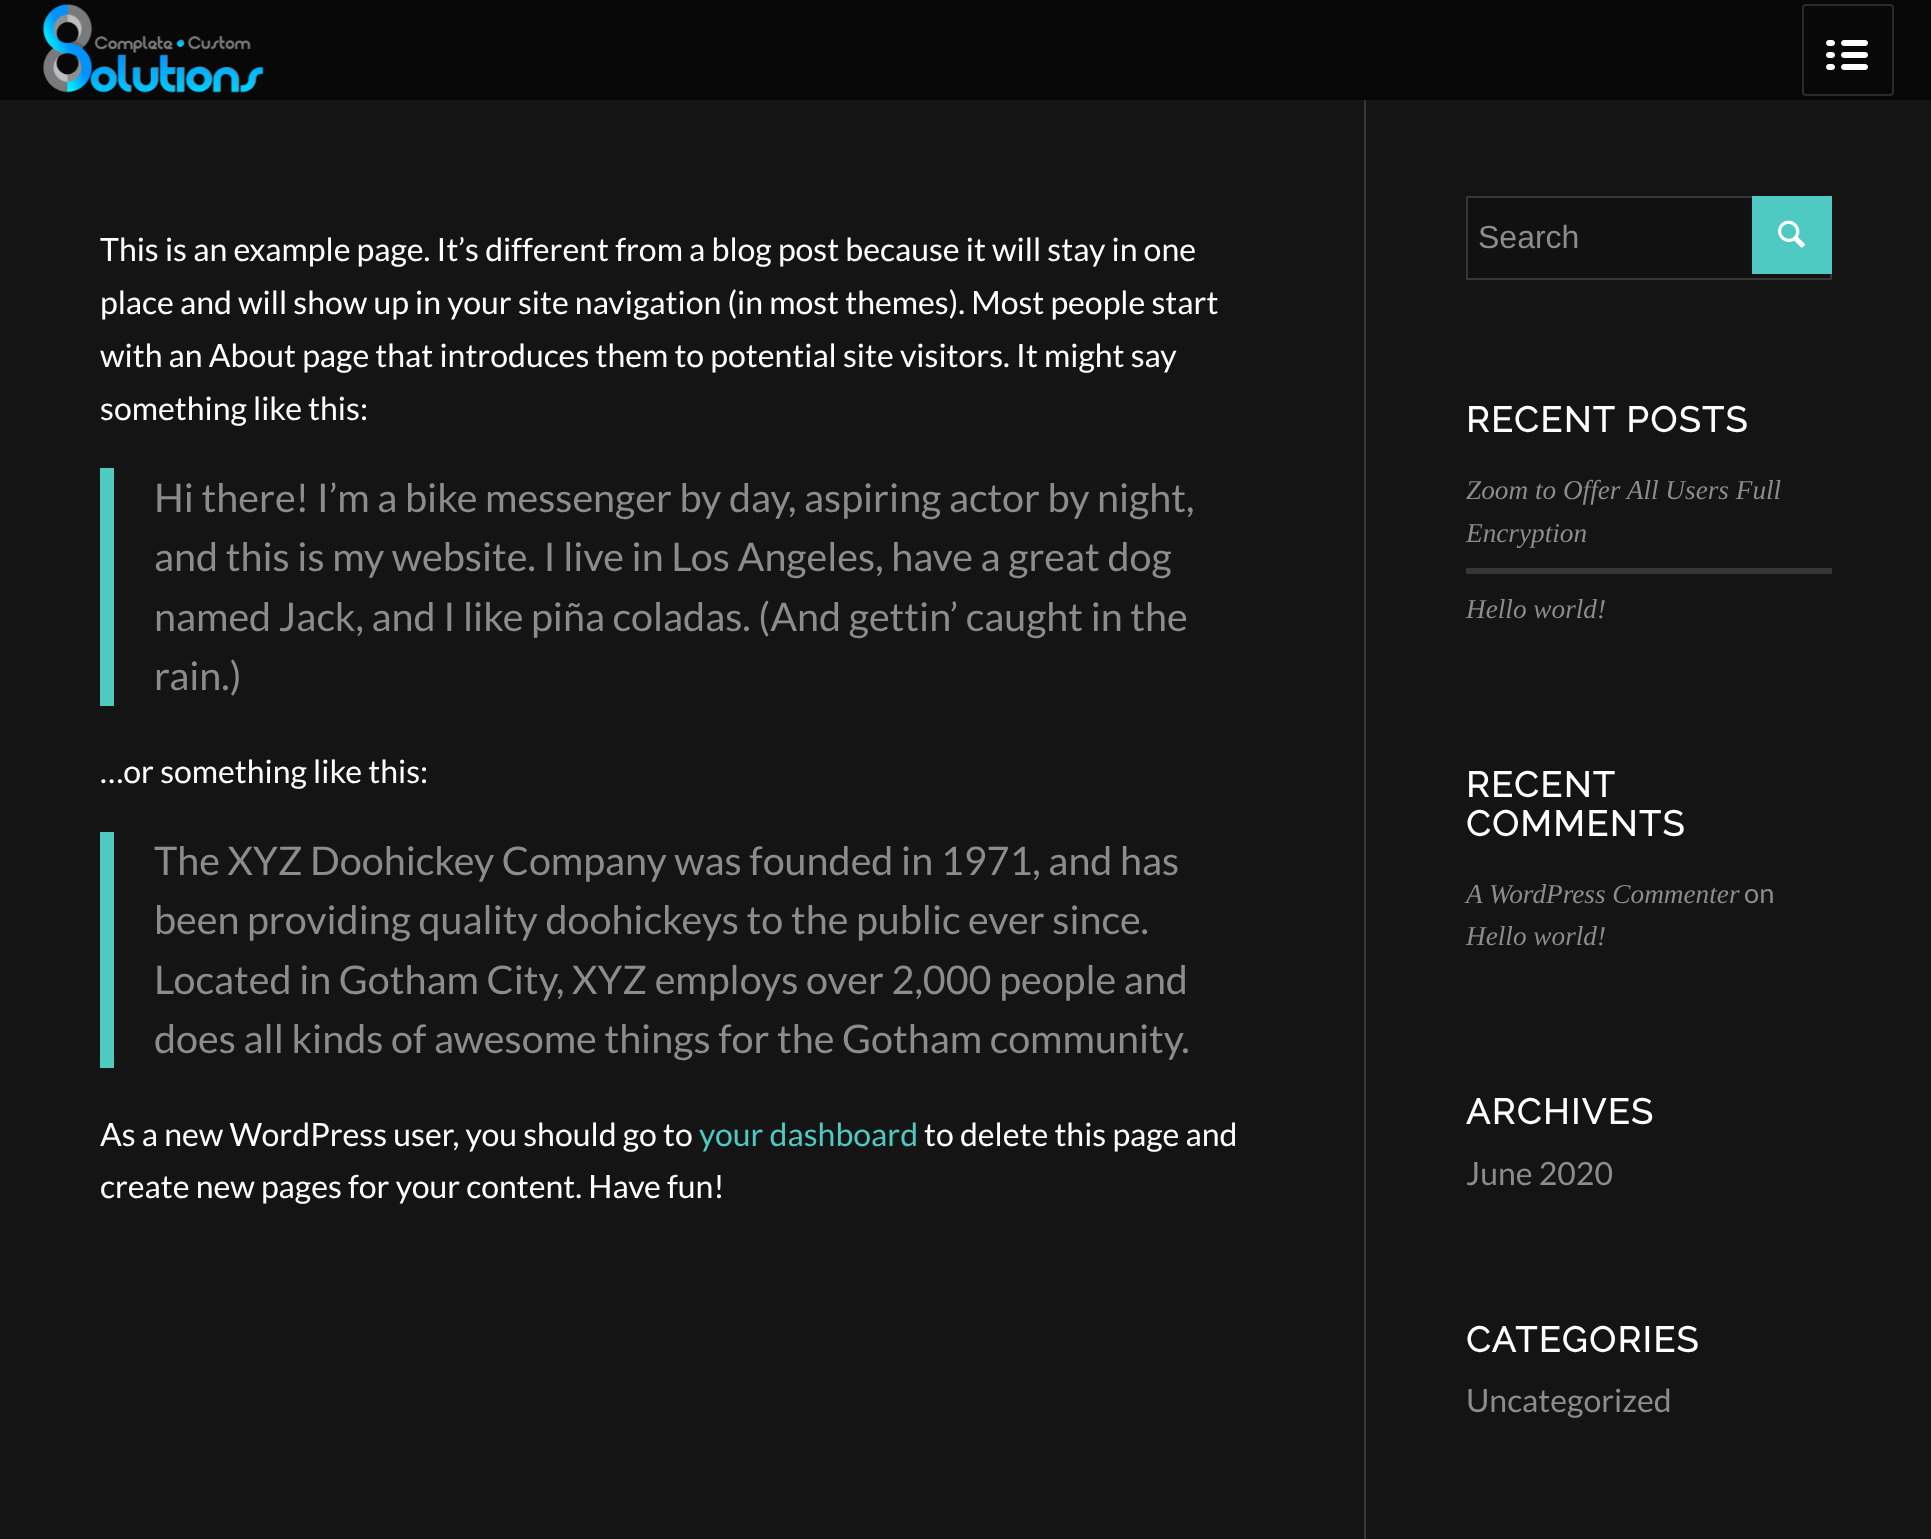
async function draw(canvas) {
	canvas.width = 1931;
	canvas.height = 1539;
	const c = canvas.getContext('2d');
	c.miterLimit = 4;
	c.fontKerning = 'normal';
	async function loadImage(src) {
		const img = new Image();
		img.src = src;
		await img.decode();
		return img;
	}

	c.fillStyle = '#141414';
	c.fillRect(0, 0, 1931, 1539);
	c.fillStyle = '#363636';
	c.fillRect(1364, 96, 2, 1443);
	c.fillStyle = '#080808';
	c.fillRect(0, 0, 1931, 100);
	c.drawImage(await loadImage('img1.png'), 43, 4, 221, 89);
	c.beginPath();
	c.roundRect(1803, 5, 90, 90, 3);
	c.strokeStyle = '#2b2b2b';
	c.lineWidth = 2;
	c.stroke();
	c.drawImage(await loadImage('img2.png'), 1826, 40, 42, 30);
	c.font = '32px Lato';
	c.fillStyle = '#fff';
	for (const [text, x, y] of [
		['This is an example page. It’s different from a blog post because it will stay in one', 100, 261],
		['place and will show up in your site navigation (in most themes). Most people start', 100, 314],
		['with an About page that introduces them to potential site visitors. It might say', 100, 367],
		['something like this:', 100, 420],
	]) {
		c.fillText(text, x, y);
	}
	c.fillStyle = '#4ecac2';
	c.fillRect(100, 468, 14, 238);
	c.font = '39.5px Lato';
	c.fillStyle = '#8c8c8c';
	for (const [text, x, y] of [
		['Hi there! I’m a bike messenger by day, aspiring actor by night,', 154, 512],
		['and this is my website. I live in Los Angeles, have a great dog', 154, 571],
		['named Jack, and I like piña coladas. (And gettin’ caught in the', 154, 631],
		['rain.)', 154, 690],
	]) {
		c.fillText(text, x, y);
	}
	c.font = '32px Lato';
	c.fillStyle = '#fff';
	c.fillText('…or something like this:', 100, 783);
	c.fillStyle = '#4ecac2';
	c.fillRect(100, 832, 14, 236);
	c.font = '39.5px Lato';
	c.fillStyle = '#8c8c8c';
	for (const [text, x, y] of [
		['The XYZ Doohickey Company was founded in 1971, and has', 154, 875],
		['been providing quality doohickeys to the public ever since.', 154, 934],
		['Located in Gotham City, XYZ employs over 2,000 people and', 154, 994],
		['does all kinds of awesome things for the Gotham community.', 154, 1053],
	]) {
		c.fillText(text, x, y);
	}
	c.font = '32px Lato';
	c.fillStyle = '#fff';
	c.fillText('As a new WordPress user, you should go to', 100, 1146);
	c.fillStyle = '#4ecac2';
	c.fillText('your dashboard', 699, 1146);
	c.fillStyle = '#fff';
	c.fillText('to delete this page and', 924, 1146);
	c.fillText('create new pages for your content. Have fun!', 100, 1198);
	c.fillStyle = '#111';
	c.beginPath();
	c.rect(1467, 197, 364, 82);
	c.fill();
	c.strokeStyle = '#363636';
	c.stroke();
	c.font = '32px Liberation Sans';
	c.fillStyle = '#8c8c8c';
	c.fillText('Search', 1478, 248);
	c.fillStyle = '#4ecac2';
	c.fillRect(1752, 196, 80, 78);
	c.drawImage(await loadImage('img3.png'), 1778, 220, 27, 28);
	c.letterSpacing = '2px';
	c.font = 'bold 35.25px Raleway';
	c.fillStyle = '#fff';
	c.fillText('RECENT POSTS', 1466, 432);
	c.letterSpacing = '0px';
	c.font = 'italic 27.25px Liberation Serif';
	c.fillStyle = '#8c8c8c';
	c.fillText('Zoom to Offer All Users Full', 1466, 499);
	c.fillText('Encryption', 1466, 542);
	c.fillStyle = '#363636';
	c.fillRect(1466, 568, 366, 6);
	c.fillStyle = '#8c8c8c';
	c.fillText('Hello world!', 1466, 618);
	c.letterSpacing = '2px';
	c.font = 'bold 35.25px Raleway';
	c.fillStyle = '#fff';
	c.fillText('RECENT', 1466, 797);
	c.fillText('COMMENTS', 1466, 836);
	c.letterSpacing = '0px';
	c.font = 'italic 27.25px Liberation Serif';
	c.fillStyle = '#8c8c8c';
	c.fillText('A WordPress Commenter', 1466, 903);
	c.font = '27.25px Lato';
	c.fillText('on', 1744, 903);
	c.font = 'italic 27.25px Liberation Serif';
	c.fillText('Hello world!', 1466, 945);
	c.letterSpacing = '2px';
	c.font = 'bold 35.25px Raleway';
	c.fillStyle = '#fff';
	c.fillText('ARCHIVES', 1466, 1124);
	c.letterSpacing = '0px';
	c.font = '32px Lato';
	c.fillStyle = '#8c8c8c';
	c.fillText('June 2020', 1466, 1185);
	c.letterSpacing = '2px';
	c.font = 'bold 35.25px Raleway';
	c.fillStyle = '#fff';
	c.fillText('CATEGORIES', 1466, 1352);
	c.letterSpacing = '0px';
	c.font = '32px Lato';
	c.fillStyle = '#8c8c8c';
	c.fillText('Uncategorized', 1466, 1412);
}

draw(document.querySelector('canvas'));
